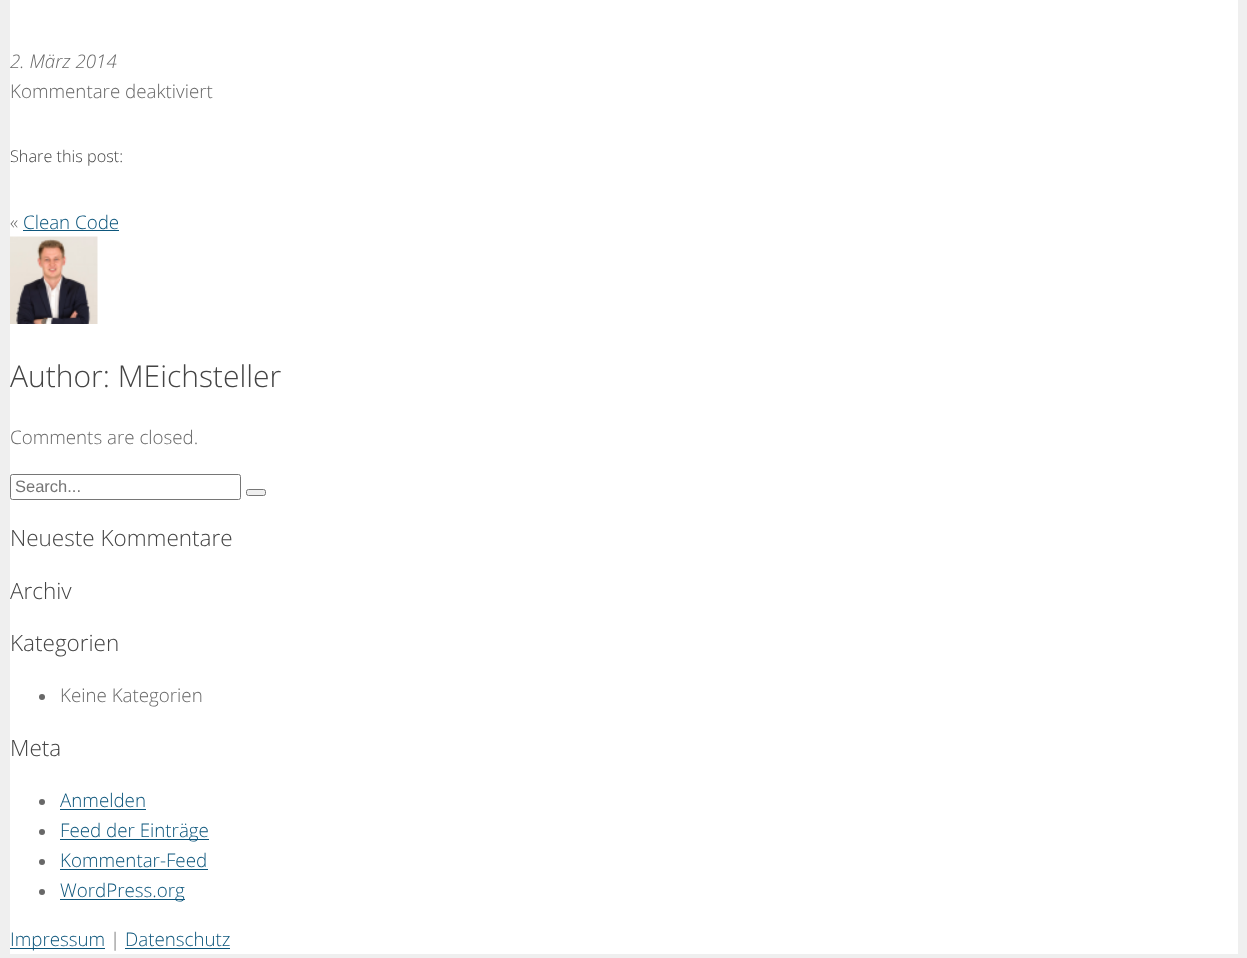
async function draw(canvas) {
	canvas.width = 1247;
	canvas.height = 958;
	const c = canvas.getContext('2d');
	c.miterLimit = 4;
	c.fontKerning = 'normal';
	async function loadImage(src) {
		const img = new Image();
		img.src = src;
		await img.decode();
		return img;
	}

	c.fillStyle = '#efefef';
	c.fillRect(0, 0, 1247, 958);
	c.fillStyle = '#fff';
	c.fillRect(10, 0, 1228, 954);
	c.font = 'italic 300 18.75px Open Sans';
	c.fillStyle = '#686868';
	c.fillText('2. März 2014', 10, 68);
	c.font = '300 18.75px Open Sans';
	c.fillText('Kommentare deaktiviert', 10, 98);
	c.font = '300 16.25px Open Sans';
	c.fillStyle = '#444';
	c.fillText('Share this post:', 10, 162);
	c.font = '300 18.75px Open Sans';
	c.fillStyle = '#686868';
	c.fillText('«', 10, 229);
	c.fillStyle = '#0d567c';
	c.fillText('Clean Code', 23, 229);
	c.fillRect(23, 230, 96, 1);
	c.drawImage(await loadImage('img1.png'), 10, 236, 88, 88);
	c.font = '300 30px Open Sans';
	c.fillStyle = '#444';
	c.fillText('Author: MEichsteller', 10, 387);
	c.font = '300 18.75px Open Sans';
	c.fillStyle = '#686868';
	c.fillText('Comments are closed.', 10, 444);
	c.beginPath();
	c.roundRect(10.5, 474.5, 230, 25, 2);
	c.strokeStyle = '#767676';
	c.stroke();
	c.font = '16.5px Liberation Sans';
	c.fillStyle = '#757575';
	c.fillText('Search...', 15, 492);
	c.fillStyle = '#efefef';
	c.beginPath();
	c.roundRect(246.5, 489.5, 19, 6, 2);
	c.fill();
	c.stroke();
	c.font = '300 22.5px Open Sans';
	c.fillStyle = '#444';
	for (const [text, x, y] of [
		['Neueste Kommentare', 10, 546],
		['Archiv', 10, 599],
		['Kategorien', 10, 651],
	]) {
		c.fillText(text, x, y);
	}
	c.fillStyle = '#686868';
	c.beginPath();
	c.arc(42, 697, 3, 0, 2 * Math.PI);
	c.fill();
	c.font = '300 18.75px Open Sans';
	c.fillText('Keine Kategorien', 60, 702);
	c.font = '300 22.5px Open Sans';
	c.fillStyle = '#444';
	c.fillText('Meta', 10, 756);
	c.fillStyle = '#686868';
	c.beginPath();
	c.arc(42, 802, 3, 0, 2 * Math.PI);
	c.fill();
	c.font = '300 18.75px Open Sans';
	c.fillStyle = '#0d567c';
	c.fillText('Anmelden', 60, 807);
	c.fillRect(60, 809, 86, 1);
	c.fillStyle = '#686868';
	c.beginPath();
	c.arc(42, 832, 3, 0, 2 * Math.PI);
	c.fill();
	c.fillStyle = '#0d567c';
	c.fillRect(60, 839, 149, 1);
	c.fillText('Feed der Einträge', 60, 837);
	c.fillStyle = '#686868';
	c.beginPath();
	c.arc(42, 862, 3, 0, 2 * Math.PI);
	c.fill();
	c.fillStyle = '#0d567c';
	c.fillText('Kommentar-Feed', 60, 867);
	c.fillRect(60, 869, 148, 1);
	c.fillStyle = '#686868';
	c.beginPath();
	c.arc(42, 892, 3, 0, 2 * Math.PI);
	c.fill();
	c.fillStyle = '#0d567c';
	c.fillRect(60, 899, 125, 1);
	c.fillText('WordPress.org', 60, 897);
	c.fillRect(10, 948, 95, 1);
	c.fillText('Impressum', 10, 946);
	c.fillStyle = '#686868';
	c.fillText('|', 110, 946);
	c.fillStyle = '#0d567c';
	c.fillText('Datenschutz', 125, 946);
	c.fillRect(125, 948, 105, 1);
}

draw(document.querySelector('canvas'));
